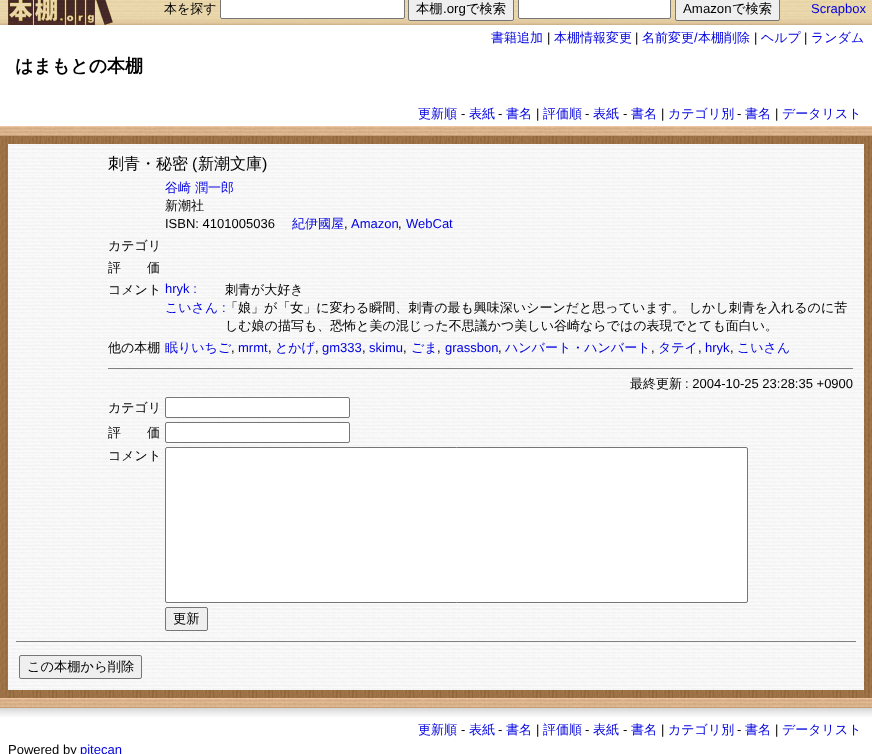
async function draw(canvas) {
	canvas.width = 872;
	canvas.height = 754;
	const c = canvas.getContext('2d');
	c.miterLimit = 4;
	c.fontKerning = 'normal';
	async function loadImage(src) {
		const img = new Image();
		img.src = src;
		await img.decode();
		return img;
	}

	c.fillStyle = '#fff';
	c.fillRect(0, 0, 872, 754);
	c.drawImage(await loadImage('img1.png'), 0, 0, 872, 25);
	c.font = '500 13px WenQuanYi Zen Hei';
	c.fillStyle = '#000';
	c.fillText('本を探す', 164, 13);
	c.fillStyle = '#fff';
	c.beginPath();
	c.roundRect(220.5, -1.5, 184, 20, 1.5);
	c.fill();
	c.strokeStyle = '#767676';
	c.stroke();
	c.fillStyle = '#efefef';
	c.beginPath();
	c.roundRect(408.5, -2.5, 105, 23, 1.5);
	c.fill();
	c.stroke();
	c.font = '500 13.25px WenQuanYi Zen Hei';
	c.fillStyle = '#000';
	c.fillText('本棚', 416, 13);
	c.font = '13.25px Liberation Sans';
	c.fillText('.org', 443, 13);
	c.font = '500 13.25px WenQuanYi Zen Hei';
	c.fillText('で検索', 466, 13);
	c.fillStyle = '#fff';
	c.beginPath();
	c.roundRect(518.5, -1.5, 152, 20, 1.5);
	c.fill();
	c.stroke();
	c.fillStyle = '#efefef';
	c.beginPath();
	c.roundRect(675.5, -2.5, 104, 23, 1.5);
	c.fill();
	c.stroke();
	c.font = '13.25px Liberation Sans';
	c.fillStyle = '#000';
	c.fillText('Amazon', 683, 13);
	c.font = '500 13.25px WenQuanYi Zen Hei';
	c.fillText('で検索', 732, 13);
	c.font = '13px Liberation Sans';
	c.fillStyle = '#0000e0';
	c.fillText('Scrapbox', 811, 13);
	c.font = '500 13px WenQuanYi Zen Hei';
	c.fillText('書籍追加', 491, 42);
	c.font = '13px Liberation Sans';
	c.fillStyle = '#000';
	c.fillText('|', 547, 42);
	c.font = '500 13px WenQuanYi Zen Hei';
	c.fillStyle = '#0000e0';
	c.fillText('本棚情報変更', 554, 42);
	c.font = '13px Liberation Sans';
	c.fillStyle = '#000';
	c.fillText('|', 635, 42);
	c.font = '500 13px WenQuanYi Zen Hei';
	c.fillStyle = '#0000e0';
	c.fillText('名前変更', 642, 42);
	c.font = '13px Liberation Sans';
	c.fillText('/', 694, 42);
	c.font = '500 13px WenQuanYi Zen Hei';
	c.fillText('本棚削除', 698, 42);
	c.font = '13px Liberation Sans';
	c.fillStyle = '#000';
	c.fillText('|', 754, 42);
	c.font = '500 13px WenQuanYi Zen Hei';
	c.fillStyle = '#0000e0';
	c.fillText('ヘルプ', 761, 42);
	c.font = '13px Liberation Sans';
	c.fillStyle = '#000';
	c.fillText('|', 804, 42);
	c.font = '500 13px WenQuanYi Zen Hei';
	c.fillStyle = '#0000e0';
	c.fillText('ランダム', 811, 42);
	c.font = 'bold 18px WenQuanYi Zen Hei';
	c.fillStyle = '#000';
	c.fillText('はまもとの本棚', 15, 72);
	c.font = '500 13px WenQuanYi Zen Hei';
	c.fillStyle = '#0000e0';
	c.fillText('更新順', 418, 118);
	c.font = '13px Liberation Sans';
	c.fillStyle = '#000';
	c.fillText('-', 461, 118);
	c.font = '500 13px WenQuanYi Zen Hei';
	c.fillStyle = '#0000e0';
	c.fillText('表紙', 469, 118);
	c.font = '13px Liberation Sans';
	c.fillStyle = '#000';
	c.fillText('-', 498, 118);
	c.font = '500 13px WenQuanYi Zen Hei';
	c.fillStyle = '#0000e0';
	c.fillText('書名', 506, 118);
	c.font = '13px Liberation Sans';
	c.fillStyle = '#000';
	c.fillText('|', 536, 118);
	c.font = '500 13px WenQuanYi Zen Hei';
	c.fillStyle = '#0000e0';
	c.fillText('評価順', 543, 118);
	c.font = '13px Liberation Sans';
	c.fillStyle = '#000';
	c.fillText('-', 585, 118);
	c.font = '500 13px WenQuanYi Zen Hei';
	c.fillStyle = '#0000e0';
	c.fillText('表紙', 593, 118);
	c.font = '13px Liberation Sans';
	c.fillStyle = '#000';
	c.fillText('-', 623, 118);
	c.font = '500 13px WenQuanYi Zen Hei';
	c.fillStyle = '#0000e0';
	c.fillText('書名', 631, 118);
	c.font = '13px Liberation Sans';
	c.fillStyle = '#000';
	c.fillText('|', 661, 118);
	c.font = '500 13px WenQuanYi Zen Hei';
	c.fillStyle = '#0000e0';
	c.fillText('カテゴリ別', 668, 118);
	c.font = '13px Liberation Sans';
	c.fillStyle = '#000';
	c.fillText('-', 737, 118);
	c.font = '500 13px WenQuanYi Zen Hei';
	c.fillStyle = '#0000e0';
	c.fillText('書名', 745, 118);
	c.font = '13px Liberation Sans';
	c.fillStyle = '#000';
	c.fillText('|', 775, 118);
	c.font = '500 13px WenQuanYi Zen Hei';
	c.fillStyle = '#0000e0';
	c.fillText('データリスト', 782, 118);
	c.drawImage(await loadImage('img2.png'), 0, 136, 872, 562);
	c.drawImage(await loadImage('img3.png'), 0, 126, 872, 10);
	c.drawImage(await loadImage('img4.png'), 8, 144, 856, 546);
	c.font = '500 16px WenQuanYi Zen Hei';
	c.fillStyle = '#000';
	c.fillText('刺青・秘密', 108, 169);
	c.font = '16px Liberation Sans';
	c.fillText('(', 192, 169);
	c.font = '500 16px WenQuanYi Zen Hei';
	c.fillText('新潮文庫', 198, 169);
	c.font = '16px Liberation Sans';
	c.fillText(')', 262, 169);
	c.font = '500 13px WenQuanYi Zen Hei';
	c.fillStyle = '#0000e0';
	c.fillText('谷崎 潤一郎', 165, 192);
	c.fillStyle = '#000';
	c.fillText('新潮社', 165, 210);
	c.font = '13px Liberation Sans';
	c.fillText('ISBN: 4101005036', 165, 228);
	c.font = '500 13px WenQuanYi Zen Hei';
	c.fillStyle = '#0000e0';
	c.fillText('紀伊國屋', 292, 228);
	c.font = '13px Liberation Sans';
	c.fillStyle = '#000';
	c.fillText(',', 344, 228);
	c.fillStyle = '#0000e0';
	c.fillText('Amazon', 351, 228);
	c.fillStyle = '#000';
	c.fillText(',', 398, 228);
	c.fillStyle = '#0000e0';
	c.fillText('WebCat', 406, 228);
	c.font = '500 13px WenQuanYi Zen Hei';
	c.fillStyle = '#000';
	for (const [text, x, y] of [
		['カテゴリ', 108, 250],
		['評　　価', 108, 272],
		['コメント', 108, 294],
	]) {
		c.fillText(text, x, y);
	}
	c.font = '13px Liberation Sans';
	c.fillStyle = '#0000e0';
	c.fillText('hryk :', 165, 293);
	c.font = '500 13px WenQuanYi Zen Hei';
	c.fillStyle = '#000';
	c.fillText('刺青が大好き', 225, 294);
	c.fillStyle = '#0000e0';
	c.fillText('こいさん', 165, 312);
	c.font = '13px Liberation Sans';
	c.fillText(':', 222, 312);
	c.font = '500 13px WenQuanYi Zen Hei';
	c.fillStyle = '#000';
	for (const [text, x, y] of [
		['「娘」が「女」に変わる瞬間、刺青の最も興味深いシーンだと思っています。 しかし刺青を入れるのに苦', 225, 312],
		['しむ娘の描写も、恐怖と美の混じった不思議かつ美しい谷崎ならではの表現でとても面白い。', 225, 330],
		['他の本棚', 108, 352],
	]) {
		c.fillText(text, x, y);
	}
	c.fillStyle = '#0000e0';
	c.fillText('眠りいちご', 165, 352);
	c.font = '13px Liberation Sans';
	c.fillStyle = '#000';
	c.fillText(',', 231, 352);
	c.fillStyle = '#0000e0';
	c.fillText('mrmt', 238, 352);
	c.fillStyle = '#000';
	c.fillText(',', 268, 352);
	c.font = '500 13px WenQuanYi Zen Hei';
	c.fillStyle = '#0000e0';
	c.fillText('とかげ', 275, 352);
	c.font = '13px Liberation Sans';
	c.fillStyle = '#000';
	c.fillText(',', 315, 352);
	c.fillStyle = '#0000e0';
	c.fillText('gm333', 322, 352);
	c.fillStyle = '#000';
	c.fillText(',', 362, 352);
	c.fillStyle = '#0000e0';
	c.fillText('skimu', 369, 352);
	c.fillStyle = '#000';
	c.fillText(',', 403, 352);
	c.font = '500 13px WenQuanYi Zen Hei';
	c.fillStyle = '#0000e0';
	c.fillText('ごま', 411, 352);
	c.font = '13px Liberation Sans';
	c.fillStyle = '#000';
	c.fillText(',', 437, 352);
	c.fillStyle = '#0000e0';
	c.fillText('grassbon', 445, 352);
	c.fillStyle = '#000';
	c.fillText(',', 498, 352);
	c.font = '500 13px WenQuanYi Zen Hei';
	c.fillStyle = '#0000e0';
	c.fillText('ハンバート・ハンバート', 505, 352);
	c.font = '13px Liberation Sans';
	c.fillStyle = '#000';
	c.fillText(',', 651, 352);
	c.font = '500 13px WenQuanYi Zen Hei';
	c.fillStyle = '#0000e0';
	c.fillText('タテイ', 658, 352);
	c.font = '13px Liberation Sans';
	c.fillStyle = '#000';
	c.fillText(',', 698, 352);
	c.fillStyle = '#0000e0';
	c.fillText('hryk', 705, 352);
	c.fillStyle = '#000';
	c.fillText(',', 730, 352);
	c.font = '500 13px WenQuanYi Zen Hei';
	c.fillStyle = '#0000e0';
	c.fillText('こいさん', 737, 352);
	c.fillStyle = '#808080';
	c.fillRect(108, 368, 745, 1);
	c.fillStyle = '#000';
	c.fillText('最終更新', 630, 388);
	c.font = '13px Liberation Sans';
	c.fillText(': 2004-10-25 23:28:35 +0900', 685, 388);
	c.font = '500 13px WenQuanYi Zen Hei';
	c.fillText('カテゴリ', 108, 412);
	c.fillStyle = '#fff';
	c.beginPath();
	c.roundRect(165.5, 397.5, 184, 20, 1.5);
	c.fill();
	c.stroke();
	c.fillStyle = '#000';
	c.fillText('評　　価', 108, 437);
	c.fillStyle = '#fff';
	c.beginPath();
	c.roundRect(165.5, 422.5, 184, 20, 1.5);
	c.fill();
	c.stroke();
	c.fillStyle = '#000';
	c.fillText('コメント', 108, 460);
	c.fillStyle = '#fff';
	c.beginPath();
	c.roundRect(165.5, 447.5, 582, 155, 1.5);
	c.fill();
	c.stroke();
	c.fillStyle = '#efefef';
	c.beginPath();
	c.roundRect(165.5, 607.5, 42, 23, 1.5);
	c.fill();
	c.stroke();
	c.font = '500 13.25px WenQuanYi Zen Hei';
	c.fillStyle = '#000';
	c.fillText('更新', 173, 623);
	c.fillStyle = '#808080';
	c.fillRect(16, 641, 840, 1);
	c.fillStyle = '#efefef';
	c.beginPath();
	c.roundRect(19.5, 655.5, 122, 23, 1.5);
	c.fill();
	c.stroke();
	c.fillStyle = '#000';
	c.fillText('この本棚から削除', 27, 671);
	c.drawImage(await loadImage('img3.png'), 0, 698, 872, 10);
	c.drawImage(await loadImage('img5.png'), 0, 708, 872, 9);
	c.font = '500 13px WenQuanYi Zen Hei';
	c.fillStyle = '#0000e0';
	c.fillText('更新順', 418, 734);
	c.font = '13px Liberation Sans';
	c.fillStyle = '#000';
	c.fillText('-', 461, 734);
	c.font = '500 13px WenQuanYi Zen Hei';
	c.fillStyle = '#0000e0';
	c.fillText('表紙', 469, 734);
	c.font = '13px Liberation Sans';
	c.fillStyle = '#000';
	c.fillText('-', 498, 734);
	c.font = '500 13px WenQuanYi Zen Hei';
	c.fillStyle = '#0000e0';
	c.fillText('書名', 506, 734);
	c.font = '13px Liberation Sans';
	c.fillStyle = '#000';
	c.fillText('|', 536, 734);
	c.font = '500 13px WenQuanYi Zen Hei';
	c.fillStyle = '#0000e0';
	c.fillText('評価順', 543, 734);
	c.font = '13px Liberation Sans';
	c.fillStyle = '#000';
	c.fillText('-', 585, 734);
	c.font = '500 13px WenQuanYi Zen Hei';
	c.fillStyle = '#0000e0';
	c.fillText('表紙', 593, 734);
	c.font = '13px Liberation Sans';
	c.fillStyle = '#000';
	c.fillText('-', 623, 734);
	c.font = '500 13px WenQuanYi Zen Hei';
	c.fillStyle = '#0000e0';
	c.fillText('書名', 631, 734);
	c.font = '13px Liberation Sans';
	c.fillStyle = '#000';
	c.fillText('|', 661, 734);
	c.font = '500 13px WenQuanYi Zen Hei';
	c.fillStyle = '#0000e0';
	c.fillText('カテゴリ別', 668, 734);
	c.font = '13px Liberation Sans';
	c.fillStyle = '#000';
	c.fillText('-', 737, 734);
	c.font = '500 13px WenQuanYi Zen Hei';
	c.fillStyle = '#0000e0';
	c.fillText('書名', 745, 734);
	c.font = '13px Liberation Sans';
	c.fillStyle = '#000';
	c.fillText('|', 775, 734);
	c.font = '500 13px WenQuanYi Zen Hei';
	c.fillStyle = '#0000e0';
	c.fillText('データリスト', 782, 734);
	c.font = '13px Liberation Sans';
	c.fillStyle = '#000';
	c.fillText('Powered by', 8, 754);
	c.fillStyle = '#0000e0';
	c.fillText('pitecan', 80, 754);
}

draw(document.querySelector('canvas'));
